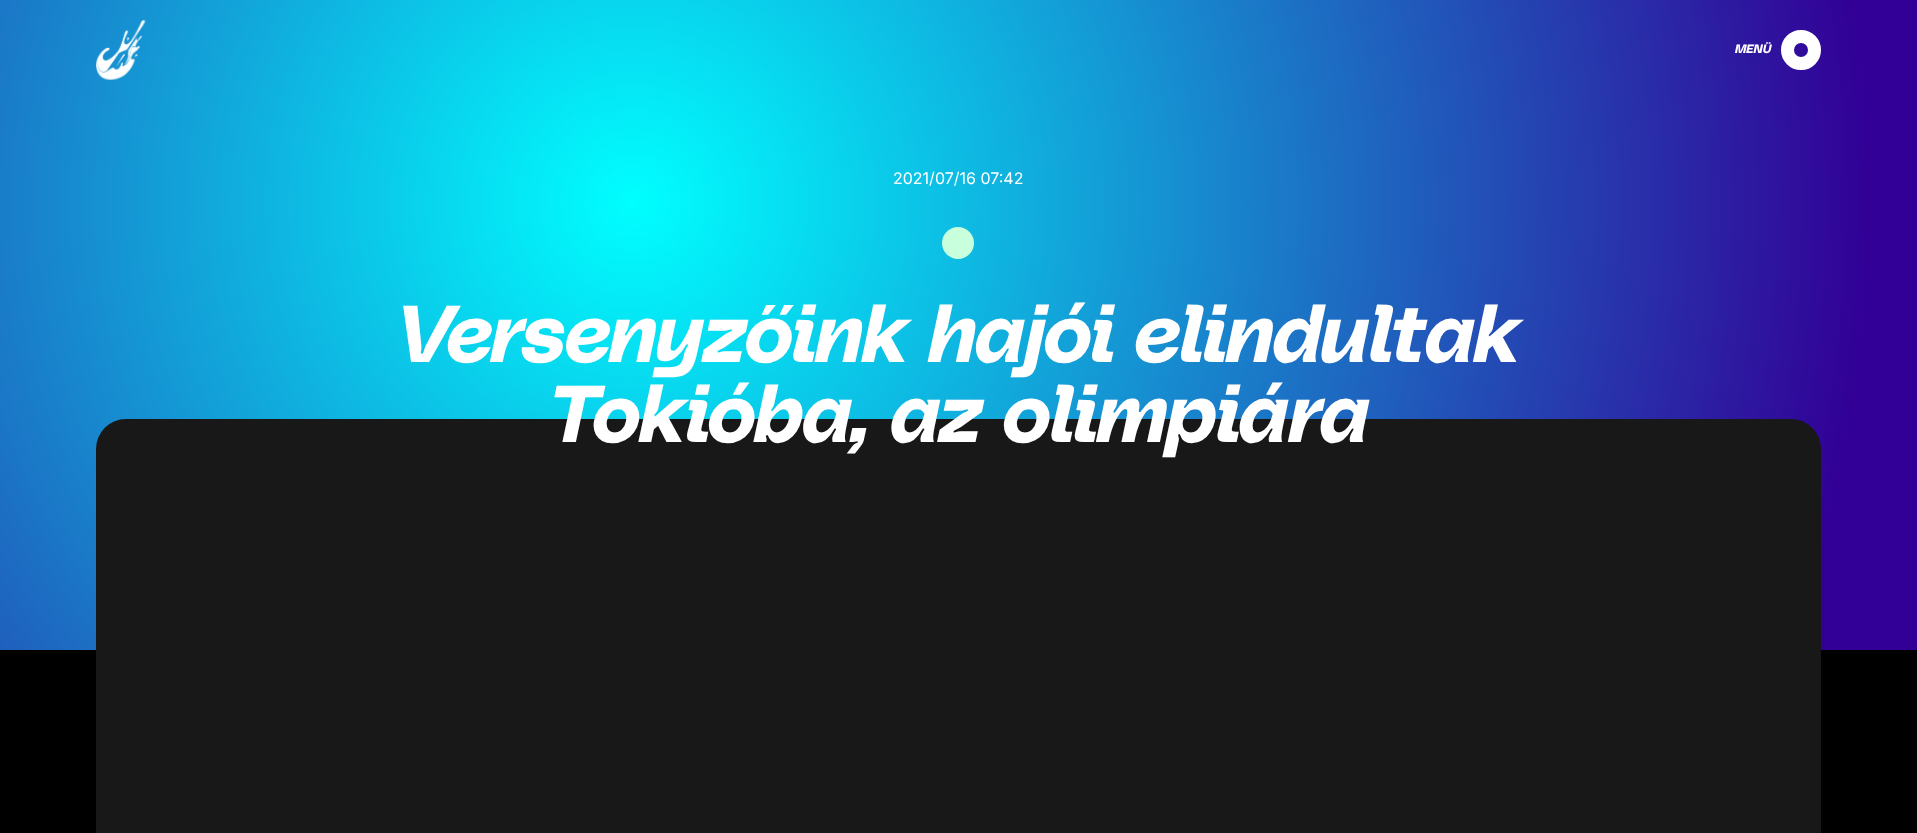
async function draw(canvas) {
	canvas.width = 1917;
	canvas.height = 833;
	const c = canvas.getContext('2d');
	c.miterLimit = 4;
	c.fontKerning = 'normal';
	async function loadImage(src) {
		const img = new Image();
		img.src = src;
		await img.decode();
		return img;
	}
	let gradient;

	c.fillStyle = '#000';
	c.fillRect(0, 0, 1917, 833);
	gradient = c.createRadialGradient(633, 202, 0, 633, 202, 1360);
	gradient.addColorStop(0, '#0ff');
	gradient.addColorStop(0.91, '#320096');
	c.fillStyle = gradient;
	c.fillRect(0, 0, 1917, 650);
	c.drawImage(await loadImage('img1.png'), 96, 20, 50, 60);
	c.font = 'italic bold 12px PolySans';
	c.fillStyle = '#fff';
	c.fillText('MENÜ', 1735, 53);
	c.beginPath();
	c.arc(1801, 50, 13.5, 0, 2 * Math.PI);
	c.strokeStyle = '#fff';
	c.lineWidth = 13;
	c.stroke();
	c.font = '16px Inter';
	c.fillText('2021/07/16 07:42', 893, 184);
	c.fillStyle = '#c8ffdc';
	c.beginPath();
	c.arc(958, 243, 16, 0, 2 * Math.PI);
	c.fill();
	c.font = 'italic bold 80px PolySans';
	c.fillStyle = '#fff';
	c.fillText('Versenyzőink hajói elindultak', 397, 362);
	c.fillStyle = '#181818';
	c.beginPath();
	c.roundRect(96, 419, 1725, 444, 30);
	c.fill();
	c.fillStyle = '#fff';
	c.fillText('Tokióba, az olimpiára', 548, 442);
}

draw(document.querySelector('canvas'));
